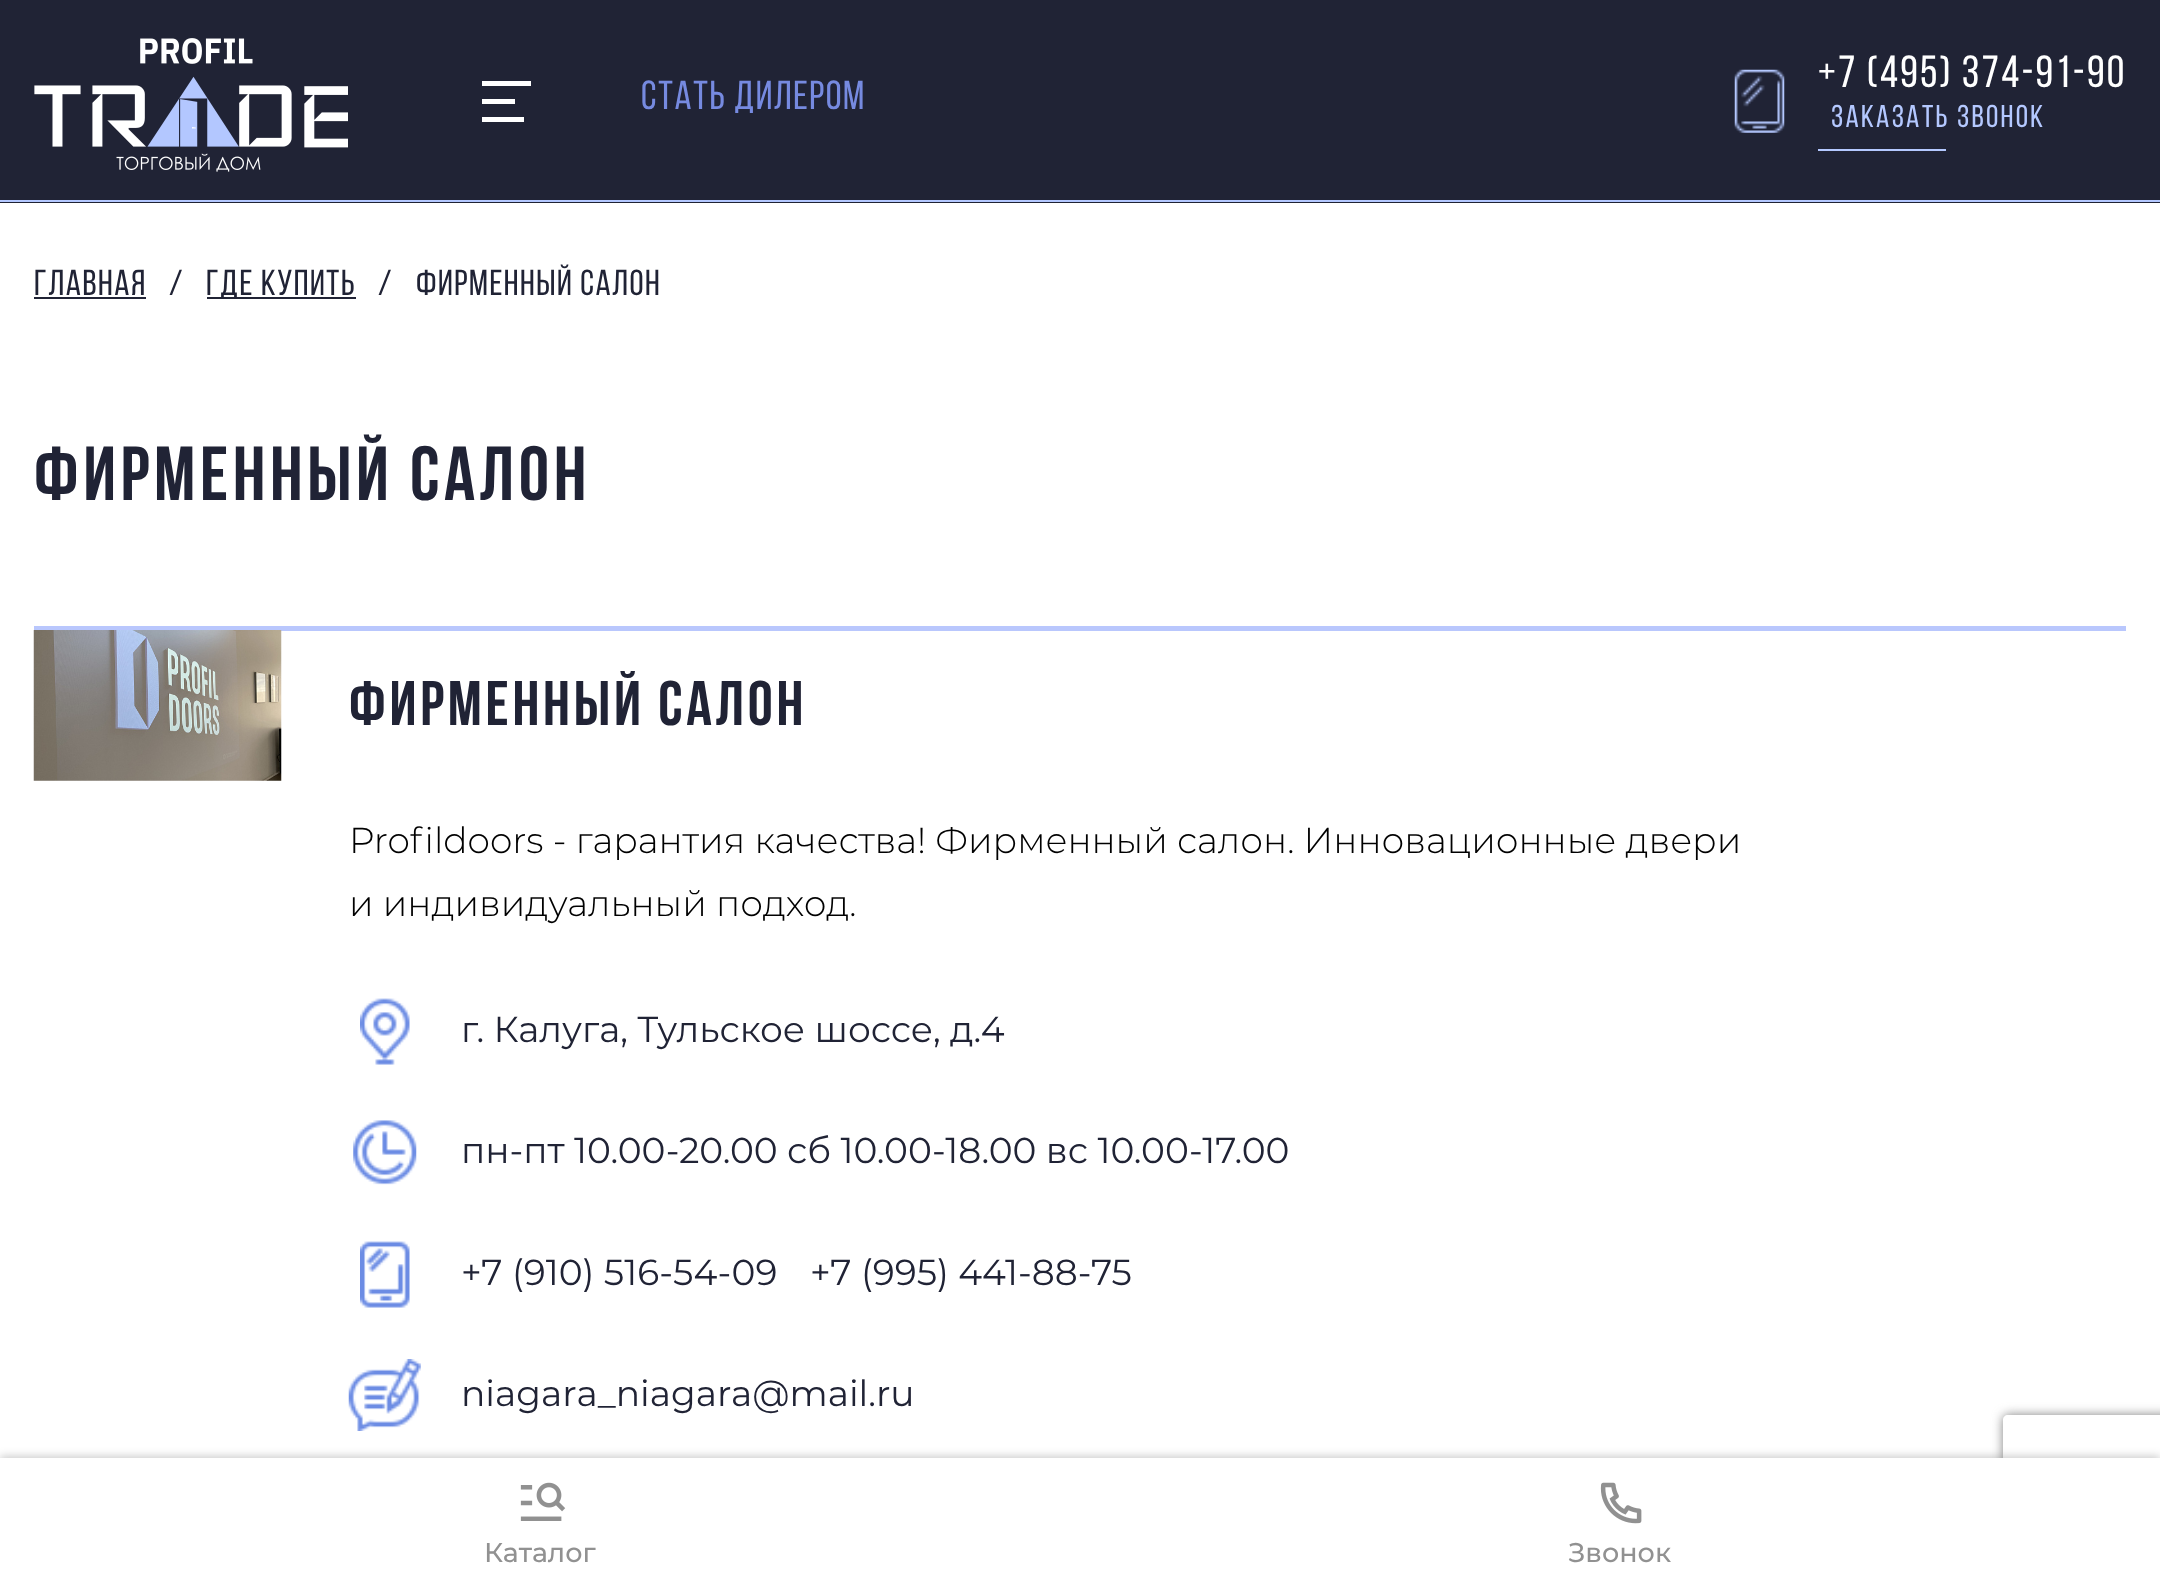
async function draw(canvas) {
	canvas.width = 2160;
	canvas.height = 1581;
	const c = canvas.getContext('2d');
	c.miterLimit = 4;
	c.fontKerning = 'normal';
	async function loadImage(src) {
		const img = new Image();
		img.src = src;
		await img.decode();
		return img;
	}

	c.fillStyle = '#fff';
	c.fillRect(0, 0, 2160, 1581);
	c.fillStyle = '#202335';
	c.fillRect(0, 0, 2160, 203);
	c.fillStyle = '#b4c8ff';
	c.fillRect(0, 200, 2160, 2);
	c.drawImage(await loadImage('img1.png'), 34, 38, 314, 134);
	for (const [x, y, w, h, color] of [
		[482, 99, 33, 5, '#fff'],
		[482, 81, 49, 5, '#fff'],
		[482, 117, 42, 5, '#fff'],
	]) {
		c.fillStyle = color;
		c.fillRect(x, y, w, h);
	}
	c.letterSpacing = '1.5px';
	c.font = '40.5px Bebas Neue';
	c.fillStyle = '#768ae0';
	c.fillText('СТАТЬ ДИЛЕРОМ', 641, 109);
	c.drawImage(await loadImage('img2.png'), 1734, 69, 51, 64);
	c.letterSpacing = '2.25px';
	c.font = '45px Bebas Neue';
	c.fillStyle = '#fff';
	c.fillText('+7 (495) 374-91-90', 1818, 87);
	c.font = '31.5px Bebas Neue';
	c.fillStyle = '#b4c8ff';
	c.fillText('ЗАКАЗАТЬ ЗВОНОК', 1831, 127);
	c.fillRect(1818, 149, 128, 2);
	c.letterSpacing = '1.5px';
	c.font = '36px Bebas Neue';
	c.fillStyle = '#202335';
	c.fillText('ГЛАВНАЯ', 34, 295);
	c.fillRect(34, 297, 112, 2);
	c.fillText('/', 169, 295);
	c.fillRect(207, 297, 149, 2);
	for (const [text, x, y] of [
		['ГДЕ КУПИТЬ', 206, 295],
		['/', 378, 295],
		['ФИРМЕННЫЙ САЛОН', 416, 295],
	]) {
		c.fillText(text, x, y);
	}
	c.letterSpacing = '4.6px';
	c.font = 'bold 76.5px Bebas Neue';
	c.fillText('ФИРМЕННЫЙ САЛОН', 34, 500);
	c.fillStyle = '#b9c7fd';
	c.fillRect(34, 626, 2092, 5);
	c.drawImage(await loadImage('img3.png'), 33, 630, 249, 151);
	c.letterSpacing = '3.75px';
	c.font = 'bold 63px Bebas Neue';
	c.fillStyle = '#202335';
	c.fillText('ФИРМЕННЫЙ САЛОН', 349, 725);
	c.letterSpacing = '0px';
	c.font = '300 36px Montserrat';
	c.fillStyle = '#000';
	c.fillText('Profildoors - гарантия качества! Фирменный салон. Инновационные двери', 349, 853);
	c.fillText('и индивидуальный подход.', 349, 916);
	c.drawImage(await loadImage('img4.png'), 360, 998, 50, 67);
	c.font = '36px Montserrat';
	c.fillStyle = '#202335';
	c.fillText('г. Калуга, Тульское шоссе, д.4', 461, 1042);
	c.drawImage(await loadImage('img5.png'), 353, 1120, 64, 65);
	c.fillText('пн-пт 10.00-20.00 сб 10.00-18.00 вс 10.00-17.00', 461, 1163);
	c.drawImage(await loadImage('img6.png'), 360, 1241, 50, 67);
	c.fillText('+7 (910) 516-54-09', 461, 1285);
	c.fillText('+7 (995) 441-88-75', 810, 1285);
	c.drawImage(await loadImage('img7.png'), 348, 1359, 73, 72);
	c.fillText('niagara_niagara@mail.ru', 461, 1406);
	c.fillStyle = '#00000033';
	c.filter = 'blur(4.5px)';
	c.beginPath();
	c.rect(0, 1456, 2160, 124);
	c.fill();
	c.filter = 'none';
	c.save();
	c.beginPath();
	c.moveTo(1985, 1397);
	c.lineTo(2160, 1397);
	c.lineTo(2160, 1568);
	c.lineTo(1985, 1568);
	c.closePath();
	c.moveTo(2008, 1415);
	c.lineTo(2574, 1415);
	c.bezierCurveTo(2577, 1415, 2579, 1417, 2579, 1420);
	c.lineTo(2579, 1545);
	c.bezierCurveTo(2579, 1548, 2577, 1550, 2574, 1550);
	c.lineTo(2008, 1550);
	c.bezierCurveTo(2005, 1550, 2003, 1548, 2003, 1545);
	c.lineTo(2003, 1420);
	c.bezierCurveTo(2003, 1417, 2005, 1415, 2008, 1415);
	c.closePath();
	c.clip('evenodd');
	c.fillStyle = '#808080';
	c.filter = 'blur(5.5px)';
	c.beginPath();
	c.roundRect(2003, 1415, 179, 135, 5);
	c.fill();
	c.filter = 'none';
	c.restore();
	c.fillStyle = '#fff';
	c.fillRect(0, 1458, 2160, 123);
	c.drawImage(await loadImage('img8.png'), 520, 1482, 46, 39);
	c.font = '500 27px Montserrat';
	c.fillStyle = '#919191';
	c.fillText('Каталог', 484, 1562);
	c.drawImage(await loadImage('img9.png'), 1600, 1482, 42, 42);
	c.fillText('Звонок', 1568, 1562);
}

draw(document.querySelector('canvas'));
